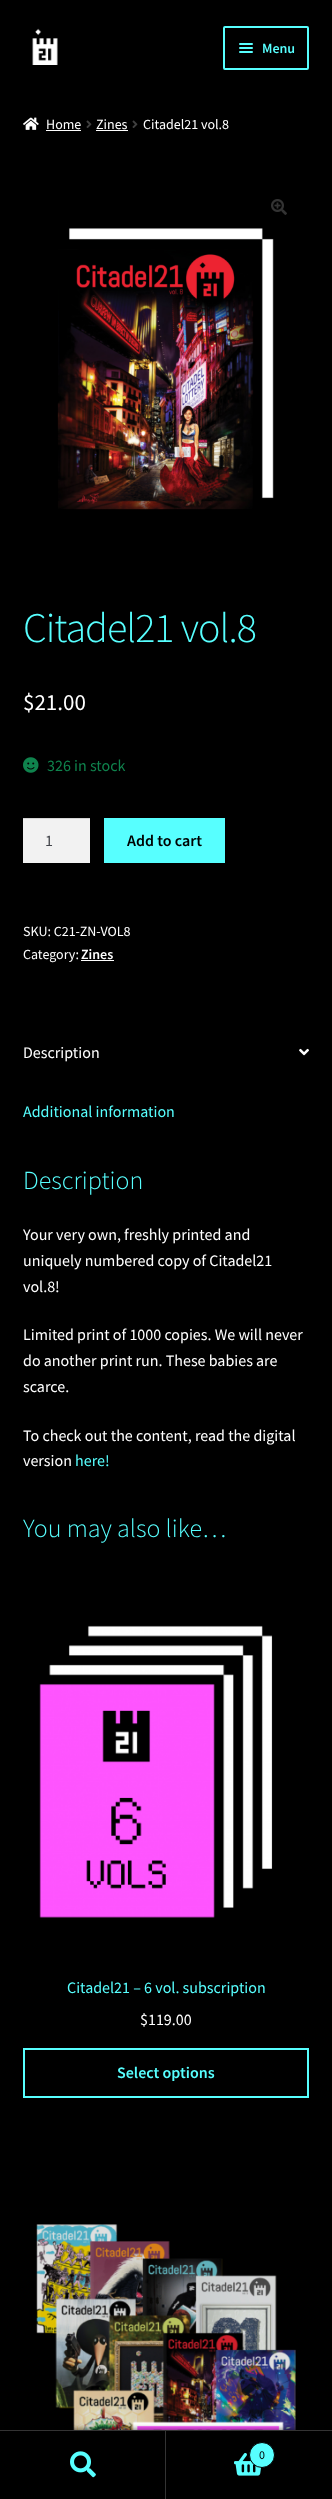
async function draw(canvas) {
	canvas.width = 332;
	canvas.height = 2499;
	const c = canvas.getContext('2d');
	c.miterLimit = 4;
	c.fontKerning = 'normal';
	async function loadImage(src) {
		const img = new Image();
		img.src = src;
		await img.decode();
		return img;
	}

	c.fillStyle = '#000';
	c.fillRect(0, 0, 332, 2499);
	c.drawImage(await loadImage('img1.png'), 32, 28, 26, 37);
	c.beginPath();
	c.roundRect(224, 27, 84, 42, 1);
	c.strokeStyle = '#57ffff';
	c.lineWidth = 2;
	c.stroke();
	c.fillStyle = '#57ffff';
	c.beginPath();
	c.roundRect(239, 43, 14, 2, 1);
	c.fill();
	c.beginPath();
	c.roundRect(239, 47, 14, 2, 1);
	c.fill();
	c.font = '600 14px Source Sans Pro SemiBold';
	c.fillText('Menu', 262, 53);
	c.beginPath();
	c.roundRect(239, 51, 14, 2, 1);
	c.fill();
	c.drawImage(await loadImage('img2.png'), 23, 117, 16, 13);
	c.font = '14px Source Sans Pro';
	c.fillStyle = '#fff';
	c.fillText('Home', 46, 129);
	c.fillRect(46, 130, 35, 1);
	c.drawImage(await loadImage('img3.png'), 86, 120, 6, 8);
	c.fillText('Zines', 96, 129);
	c.fillRect(96, 130, 32, 1);
	c.drawImage(await loadImage('img3.png'), 132, 120, 6, 8);
	c.fillText('Citadel21 vol.8', 143, 129);
	c.drawImage(await loadImage('img4.png'), 271, 199, 16, 16);
	c.drawImage(await loadImage('img5.png'), 57, 228, 217, 282);
	c.letterSpacing = '-1px';
	c.font = '300 42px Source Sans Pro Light';
	c.fillStyle = '#57ffff';
	c.fillText('Citadel21 vol.8', 23, 642);
	c.letterSpacing = '0px';
	c.font = '23px Source Sans Pro';
	c.fillStyle = '#fff';
	c.fillText('$21.00', 23, 710);
	c.drawImage(await loadImage('img6.png'), 23, 757, 16, 16);
	c.font = '16px Source Sans Pro';
	c.fillStyle = '#0f834d';
	c.fillText('326 in stock', 47, 771);
	c.fillStyle = '#f2f2f2';
	c.fillRect(23, 819, 67, 44);
	c.fillStyle = '#d4d4d4';
	c.fillRect(23, 818, 67, 1);
	c.fillStyle = '#43454b';
	c.fillText('1', 45, 846);
	c.fillStyle = '#57ffff';
	c.fillRect(104, 818, 121, 45);
	c.font = '600 16px Source Sans Pro SemiBold';
	c.fillStyle = '#000';
	c.fillText('Add to cart', 127, 846);
	c.font = '14px Source Sans Pro';
	c.fillStyle = '#fff';
	c.fillText('SKU: C21-ZN-VOL8', 23, 936);
	c.fillText('Category:', 23, 959);
	c.font = '600 14px Source Sans Pro SemiBold';
	c.fillText('Zines', 81, 959);
	c.fillRect(81, 960, 33, 1);
	c.font = '16px Source Sans Pro';
	c.fillText('Description', 23, 1058);
	c.drawImage(await loadImage('img7.png'), 299, 1048, 10, 8);
	c.fillStyle = '#57ffff';
	c.fillText('Additional information', 23, 1117);
	c.font = '300 26px Source Sans Pro Light';
	c.fillText('Description', 23, 1189);
	c.font = '16px Source Sans Pro';
	c.fillStyle = '#fff';
	for (const [text, x, y] of [
		['Your very own, freshly printed and', 23, 1240],
		['uniquely numbered copy of Citadel21', 23, 1266],
		['vol.8!', 23, 1292],
		['Limited print of 1000 copies. We will never', 23, 1340],
		['do another print run. These babies are', 23, 1366],
		['scarce.', 23, 1392],
		['To check out the content, read the digital', 23, 1441],
		['version', 23, 1466],
	]) {
		c.fillText(text, x, y);
	}
	c.fillStyle = '#57ffff';
	c.fillText('here!', 75, 1466);
	c.font = '300 26px Source Sans Pro Light';
	c.fillText('You may also like…', 23, 1537);
	c.drawImage(await loadImage('img8.png'), 39, 1625, 234, 293);
	c.font = '16px Source Sans Pro';
	c.fillText('Citadel21 – 6 vol. subscription', 67, 1993);
	c.fillStyle = '#fff';
	c.fillText('$119.00', 140, 2025);
	c.strokeRect(24, 2049, 284, 48);
	c.font = '600 16px Source Sans Pro SemiBold';
	c.fillStyle = '#57ffff';
	c.fillText('Select options', 117, 2078);
	c.drawImage(await loadImage('img9.png'), 36, 2224, 260, 206);
	c.fillStyle = '#000000b3';
	c.filter = 'blur(3px)';
	c.beginPath();
	c.rect(0, 2430, 332, 69);
	c.fill();
	c.filter = 'none';
	c.fillStyle = '#333';
	c.fillRect(0, 2430, 332, 1);
	c.fillRect(165, 2431, 1, 68);
	c.drawImage(await loadImage('img10.png'), 70, 2451, 26, 27);
	c.drawImage(await loadImage('img11.png'), 234, 2453, 28, 23);
	c.fillStyle = '#57ffff';
	c.beginPath();
	c.arc(262, 2455, 12.5, 0, 2 * Math.PI);
	c.fill();
	c.strokeStyle = '#000';
	c.lineWidth = 1;
	c.stroke();
	c.font = '12px Source Sans Pro';
	c.fillStyle = '#000';
	c.fillText('0', 259, 2459);
}

draw(document.querySelector('canvas'));
